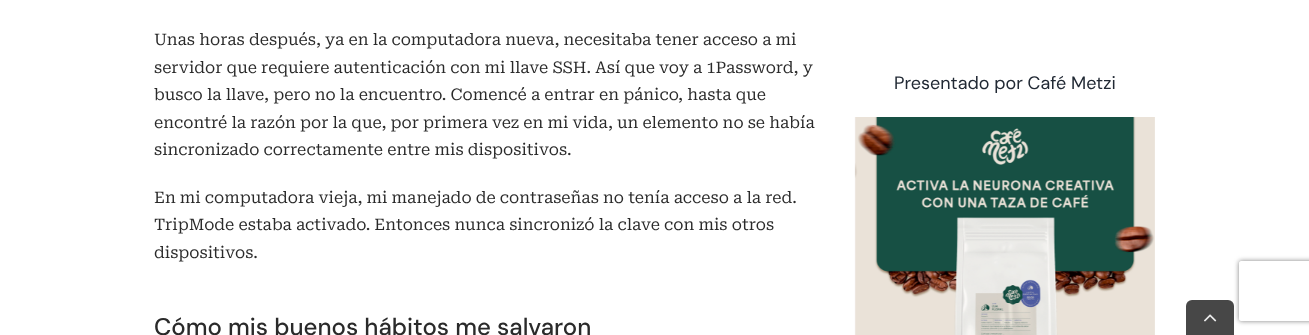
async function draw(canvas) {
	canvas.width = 1309;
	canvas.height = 335;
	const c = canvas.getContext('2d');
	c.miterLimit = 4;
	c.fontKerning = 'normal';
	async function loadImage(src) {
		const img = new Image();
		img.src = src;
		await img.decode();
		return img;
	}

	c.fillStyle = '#fff';
	c.fillRect(0, 0, 1309, 335);
	c.font = '16px Roboto Serif';
	c.fillStyle = '#2a2a2a';
	for (const [text, x, y] of [
		['Unas horas después, ya en la computadora nueva, necesitaba tener acceso a mi', 154, 45],
		['servidor que requiere autenticación con mi llave SSH. Así que voy a 1Password, y', 154, 73],
		['busco la llave, pero no la encuentro. Comencé a entrar en pánico, hasta que', 154, 100],
		['encontré la razón por la que, por primera vez en mi vida, un elemento no se había', 154, 128],
		['sincronizado correctamente entre mis dispositivos.', 154, 155],
		['En mi computadora vieja, mi manejado de contraseñas no tenía acceso a la red.', 154, 203],
		['TripMode estaba activado. Entonces nunca sincronizó la clave con mis otros', 154, 230],
		['dispositivos.', 154, 258],
	]) {
		c.fillText(text, x, y);
	}
	c.font = '500 24px DM Sans';
	c.fillText('Cómo mis buenos hábitos me salvaron', 154, 335);
	c.font = '18px DM Sans';
	c.fillStyle = '#212934';
	c.fillText('Presentado por Café Metzi', 894, 89);
	c.drawImage(await loadImage('img1.png'), 854, 117, 301, 218);
	c.save();
	c.beginPath();
	c.moveTo(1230, 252);
	c.lineTo(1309, 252);
	c.lineTo(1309, 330);
	c.lineTo(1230, 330);
	c.closePath();
	c.moveTo(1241, 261);
	c.lineTo(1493, 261);
	c.bezierCurveTo(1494, 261, 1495, 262, 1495, 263);
	c.lineTo(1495, 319);
	c.bezierCurveTo(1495, 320, 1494, 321, 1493, 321);
	c.lineTo(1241, 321);
	c.bezierCurveTo(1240, 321, 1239, 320, 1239, 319);
	c.lineTo(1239, 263);
	c.bezierCurveTo(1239, 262, 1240, 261, 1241, 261);
	c.closePath();
	c.clip('evenodd');
	c.fillStyle = '#808080';
	c.filter = 'blur(2.5px)';
	c.beginPath();
	c.roundRect(1239, 261, 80, 60, 2);
	c.fill();
	c.filter = 'none';
	c.restore();
	c.fillStyle = '#474747';
	c.beginPath();
	c.roundRect(1186, 300, 48, 35, [6, 6, 0, 0]);
	c.fill();
	c.drawImage(await loadImage('img2.png'), 1204, 314, 13, 8);
}

draw(document.querySelector('canvas'));
